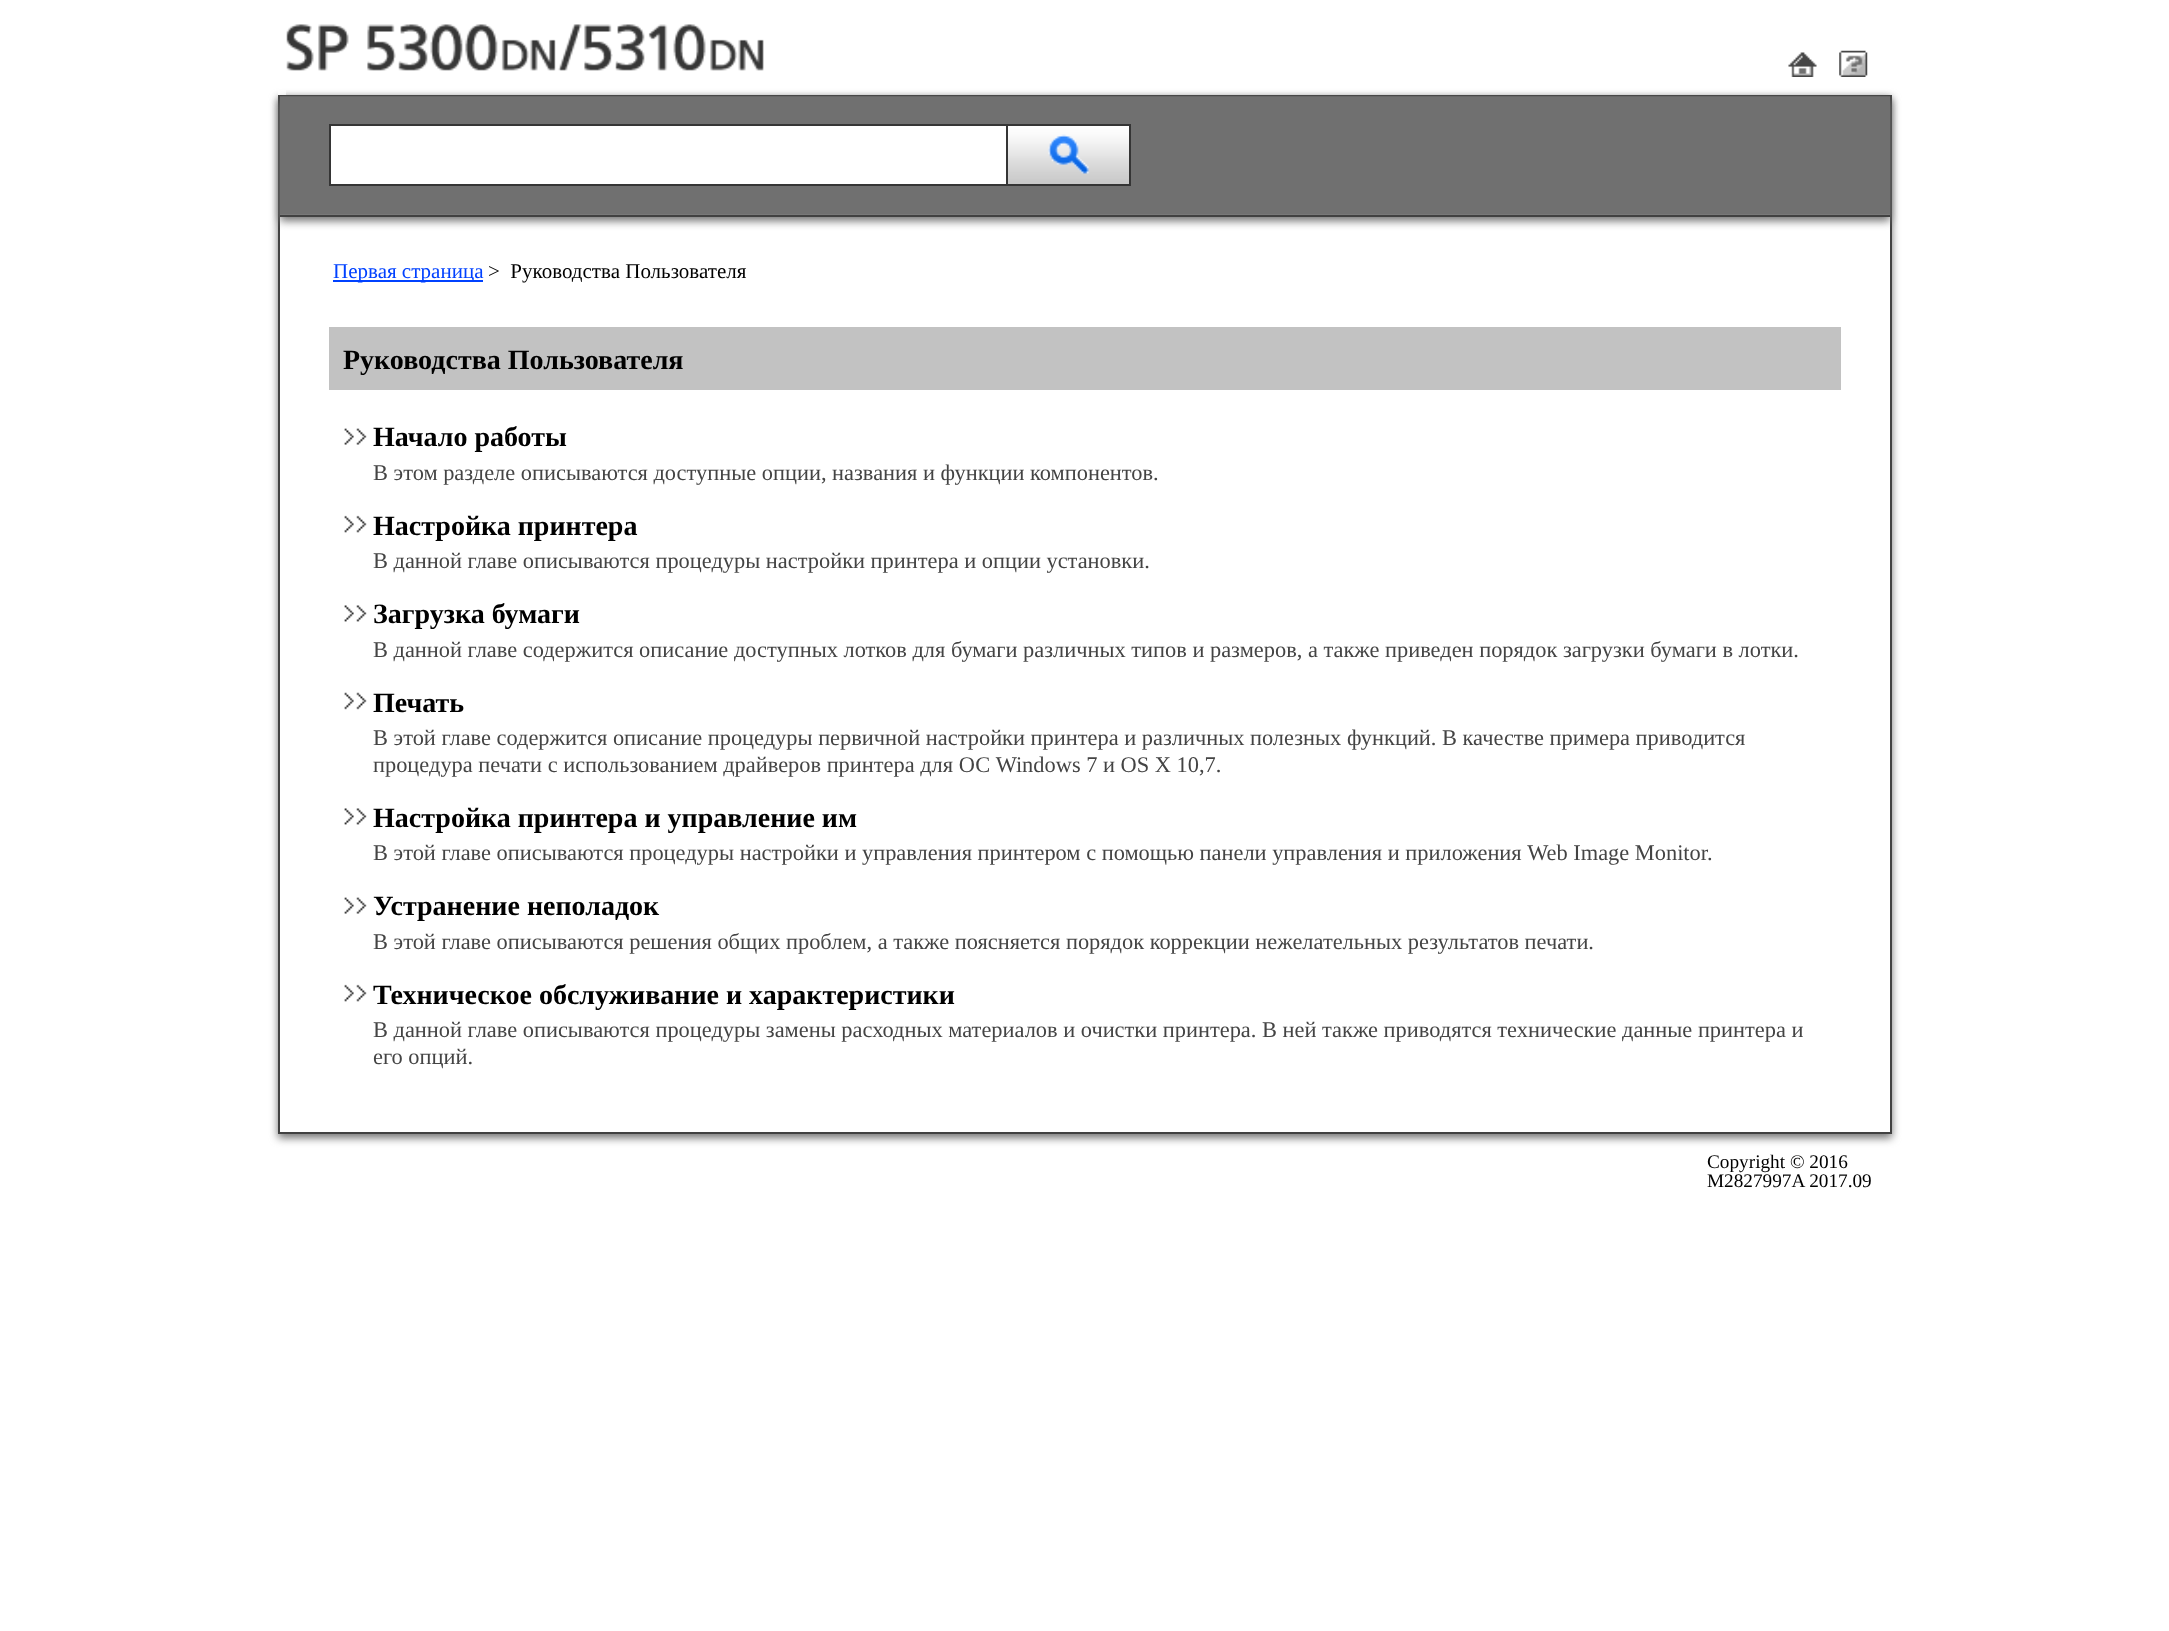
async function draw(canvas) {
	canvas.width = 2169;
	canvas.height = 1631;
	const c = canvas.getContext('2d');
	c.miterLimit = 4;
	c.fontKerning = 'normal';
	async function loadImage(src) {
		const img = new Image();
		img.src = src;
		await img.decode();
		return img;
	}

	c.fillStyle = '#fff';
	c.fillRect(0, 0, 2169, 1631);
	c.fillStyle = '#737373';
	c.filter = 'blur(4.5px)';
	c.beginPath();
	c.rect(278, 98, 1614, 1040);
	c.fill();
	c.filter = 'none';
	c.fillStyle = '#fff';
	c.fillRect(280, 217, 1610, 915);
	c.strokeStyle = '#414141';
	c.lineWidth = 2;
	c.strokeRect(279, 96, 1612, 1037);
	c.drawImage(await loadImage('img1.png'), 286, 24, 478, 47);
	c.fillRect(278, 90, 8, 5);
	c.drawImage(await loadImage('img2.png'), 1788, 52, 29, 25);
	c.drawImage(await loadImage('img3.png'), 1839, 50, 29, 27);
	c.fillStyle = '#737373';
	c.filter = 'blur(4.5px)';
	c.beginPath();
	c.rect(280, 100, 1610, 121);
	c.fill();
	c.filter = 'none';
	c.drawImage(await loadImage('img4.png'), 280, 96, 1610, 119);
	for (const [x, y, w, h, color] of [
		[280, 215, 1610, 2, '#414141'],
		[331, 126, 675, 58, '#fff'],
		[329, 124, 677, 2, '#353535'],
		[329, 184, 677, 2, '#353535'],
		[329, 124, 2, 62, '#353535'],
	]) {
		c.fillStyle = color;
		c.fillRect(x, y, w, h);
	}
	c.drawImage(await loadImage('img5.png'), 1008, 126, 121, 58);
	c.strokeStyle = '#353535';
	c.strokeRect(1007, 125, 123, 60);
	c.drawImage(await loadImage('img6.png'), 1048, 134, 41, 40);
	c.fillStyle = '#0041ff';
	c.fillRect(333, 280, 150, 2);
	c.font = '21px Liberation Serif';
	c.fillText('Первая страница', 333, 278);
	c.fillStyle = '#000';
	c.fillText('>  Руководства Пользователя', 488, 278);
	c.fillStyle = '#c2c2c2';
	c.fillRect(329, 327, 1512, 63);
	c.font = 'bold 28px Liberation Serif';
	c.fillStyle = '#000';
	c.fillText('Руководства Пользователя', 343, 369);
	c.drawImage(await loadImage('img7.png'), 344, 428, 23, 17);
	c.fillText('Начало работы', 373, 446);
	c.font = '22.4px Liberation Serif';
	c.fillStyle = '#444';
	c.fillText('В этом разделе описываются доступные опции, названия и функции компонентов.', 373, 480);
	c.drawImage(await loadImage('img8.png'), 344, 515, 23, 18);
	c.font = 'bold 28px Liberation Serif';
	c.fillStyle = '#000';
	c.fillText('Настройка принтера', 373, 535);
	c.font = '22.4px Liberation Serif';
	c.fillStyle = '#444';
	c.fillText('В данной главе описываются процедуры настройки принтера и опции установки.', 373, 568);
	c.drawImage(await loadImage('img9.png'), 344, 605, 23, 17);
	c.font = 'bold 28px Liberation Serif';
	c.fillStyle = '#000';
	c.fillText('Загрузка бумаги', 373, 623);
	c.font = '22.4px Liberation Serif';
	c.fillStyle = '#444';
	c.fillText('В данной главе содержится описание доступных лотков для бумаги различных типов и размеров, а также приведен порядок загрузки бумаги в лотки.', 373, 657);
	c.drawImage(await loadImage('img10.png'), 344, 692, 23, 18);
	c.font = 'bold 28px Liberation Serif';
	c.fillStyle = '#000';
	c.fillText('Печать', 373, 712);
	c.font = '22.4px Liberation Serif';
	c.fillStyle = '#444';
	c.fillText('В этой главе содержится описание процедуры первичной настройки принтера и различных полезных функций. В качестве примера приводится', 373, 745);
	c.fillText('процедура печати с использованием драйверов принтера для ОС Windows 7 и OS X 10,7.', 373, 772);
	c.drawImage(await loadImage('img9.png'), 344, 808, 23, 17);
	c.font = 'bold 28px Liberation Serif';
	c.fillStyle = '#000';
	c.fillText('Настройка принтера и управление им', 373, 827);
	c.font = '22.4px Liberation Serif';
	c.fillStyle = '#444';
	c.fillText('В этой главе описываются процедуры настройки и управления принтером с помощью панели управления и приложения Web Image Monitor.', 373, 860);
	c.drawImage(await loadImage('img7.png'), 344, 897, 23, 17);
	c.font = 'bold 28px Liberation Serif';
	c.fillStyle = '#000';
	c.fillText('Устранение неполадок', 373, 915);
	c.font = '22.4px Liberation Serif';
	c.fillStyle = '#444';
	c.fillText('В этой главе описываются решения общих проблем, а также поясняется порядок коррекции нежелательных результатов печати.', 373, 949);
	c.drawImage(await loadImage('img8.png'), 344, 984, 23, 18);
	c.font = 'bold 28px Liberation Serif';
	c.fillStyle = '#000';
	c.fillText('Техническое обслуживание и характеристики', 373, 1004);
	c.font = '22.4px Liberation Serif';
	c.fillStyle = '#444';
	c.fillText('В данной главе описываются процедуры замены расходных материалов и очистки принтера. В ней также приводятся технические данные принтера и', 373, 1037);
	c.fillText('его опций.', 373, 1064);
	c.font = '19.25px Liberation Serif';
	c.fillStyle = '#000';
	c.fillText('Copyright © 2016', 1707, 1168);
	c.fillText('M2827997A 2017.09', 1707, 1187);
}

draw(document.querySelector('canvas'));
